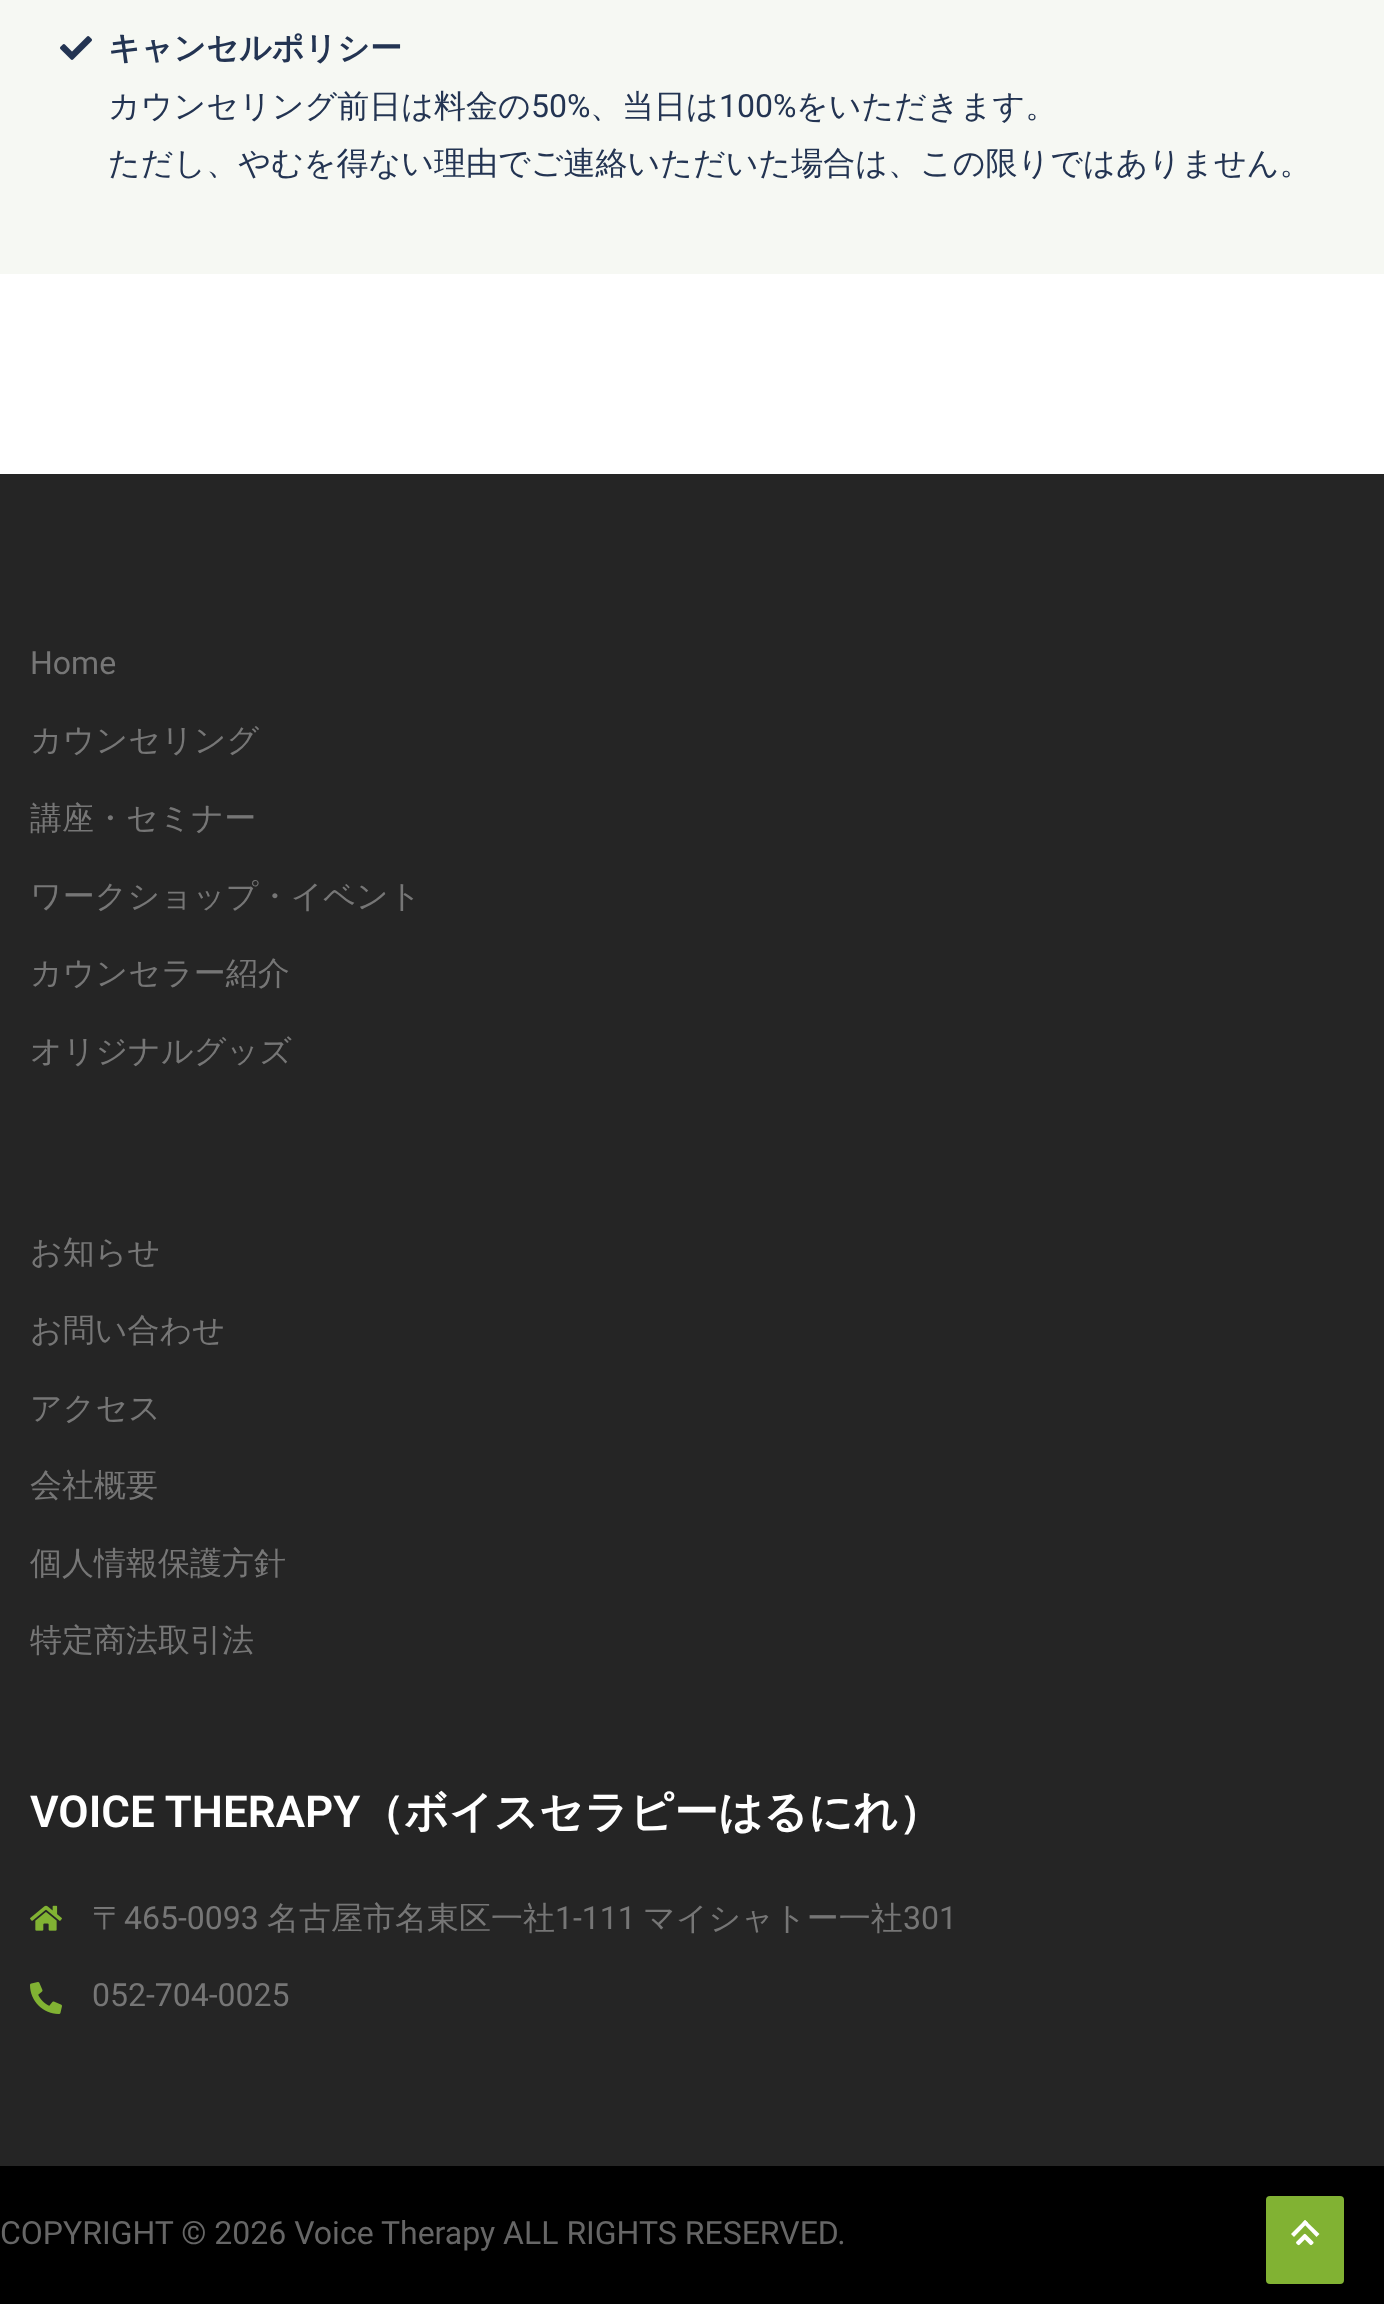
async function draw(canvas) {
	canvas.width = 1384;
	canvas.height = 2304;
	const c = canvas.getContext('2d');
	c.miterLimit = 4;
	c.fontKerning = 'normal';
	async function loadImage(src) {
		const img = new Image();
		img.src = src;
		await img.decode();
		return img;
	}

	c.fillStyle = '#fff';
	c.fillRect(0, 0, 1384, 2304);
	c.fillStyle = '#f6f8f3';
	c.fillRect(0, 0, 1384, 274);
	c.drawImage(await loadImage('img1.png'), 60, 36, 32, 24);
	c.font = 'bold 32px WenQuanYi Zen Hei';
	c.fillStyle = '#233452';
	c.fillText('キャンセルポリシー', 108, 59);
	c.font = '500 32px WenQuanYi Zen Hei';
	c.fillText('カウンセリング前日は料金の', 108, 117);
	c.font = '32px Roboto';
	c.fillText('50%', 531, 117);
	c.font = '500 32px WenQuanYi Zen Hei';
	c.fillText('、当日は', 590, 117);
	c.font = '32px Roboto';
	c.fillText('100%', 719, 117);
	c.font = '500 32px WenQuanYi Zen Hei';
	c.fillText('をいただきます。', 796, 117);
	c.fillText('ただし、やむを得ない理由でご連絡いただいた場合は、この限りではありません。', 108, 174);
	c.fillStyle = '#252525';
	c.fillRect(0, 474, 1384, 1692);
	c.font = '32px Roboto';
	c.fillStyle = '#767676';
	c.fillText('Home', 30, 674);
	c.font = '500 32px WenQuanYi Zen Hei';
	for (const [text, x, y] of [
		['カウンセリング', 30, 751],
		['講座・セミナー', 30, 829],
		['ワークショップ・イベント', 30, 907],
		['カウンセラー紹介', 30, 984],
		['オリジナルグッズ', 30, 1062],
		['お知らせ', 30, 1263],
		['お問い合わせ', 30, 1341],
		['アクセス', 30, 1419],
		['会社概要', 30, 1496],
		['個人情報保護方針', 30, 1574],
		['特定商法取引法', 30, 1651],
	]) {
		c.fillText(text, x, y);
	}
	c.font = '600 44px Roboto';
	c.fillStyle = '#fff';
	c.fillText('VOICE THERAPY', 30, 1827);
	c.font = 'bold 44px WenQuanYi Zen Hei';
	c.fillText('（ボイスセラピーはるにれ）', 360, 1827);
	c.drawImage(await loadImage('img2.png'), 30, 1905, 32, 26);
	c.font = '500 32px WenQuanYi Zen Hei';
	c.fillStyle = '#767676';
	c.fillText('〒', 92, 1929);
	c.font = '32px Roboto';
	c.fillText('465-0093', 124, 1929);
	c.font = '500 32px WenQuanYi Zen Hei';
	c.fillText('名古屋市名東区一社', 267, 1929);
	c.font = '32px Roboto';
	c.fillText('1-111', 555, 1929);
	c.font = '500 32px WenQuanYi Zen Hei';
	c.fillText('マイシャトー一社', 643, 1929);
	c.font = '32px Roboto';
	c.fillText('301', 903, 1929);
	c.drawImage(await loadImage('img3.png'), 30, 1982, 32, 32);
	c.fillText('052-704-0025', 92, 2006);
	c.fillStyle = '#000';
	c.fillRect(0, 2166, 1384, 138);
	c.fillStyle = '#666';
	c.fillText('COPYRIGHT © 2026 Voice Therapy ALL RIGHTS RESERVED.', 0, 2244);
	c.fillStyle = '#81b233';
	c.beginPath();
	c.roundRect(1266, 2196, 78, 88, 4);
	c.fill();
	c.drawImage(await loadImage('img4.png'), 1296, 2233, 18, 13);
	c.fillStyle = '#fff';
	c.beginPath();
	c.moveTo(1305, 2220);
	c.lineTo(1319.5, 2234);
	c.lineTo(1316.5, 2237);
	c.lineTo(1302.5, 2222.5);
	c.closePath();
	c.fill();
	c.beginPath();
	c.moveTo(1305, 2220);
	c.lineTo(1308, 2222.5);
	c.lineTo(1294, 2237);
	c.lineTo(1291, 2234);
	c.closePath();
	c.fill();
}

draw(document.querySelector('canvas'));
